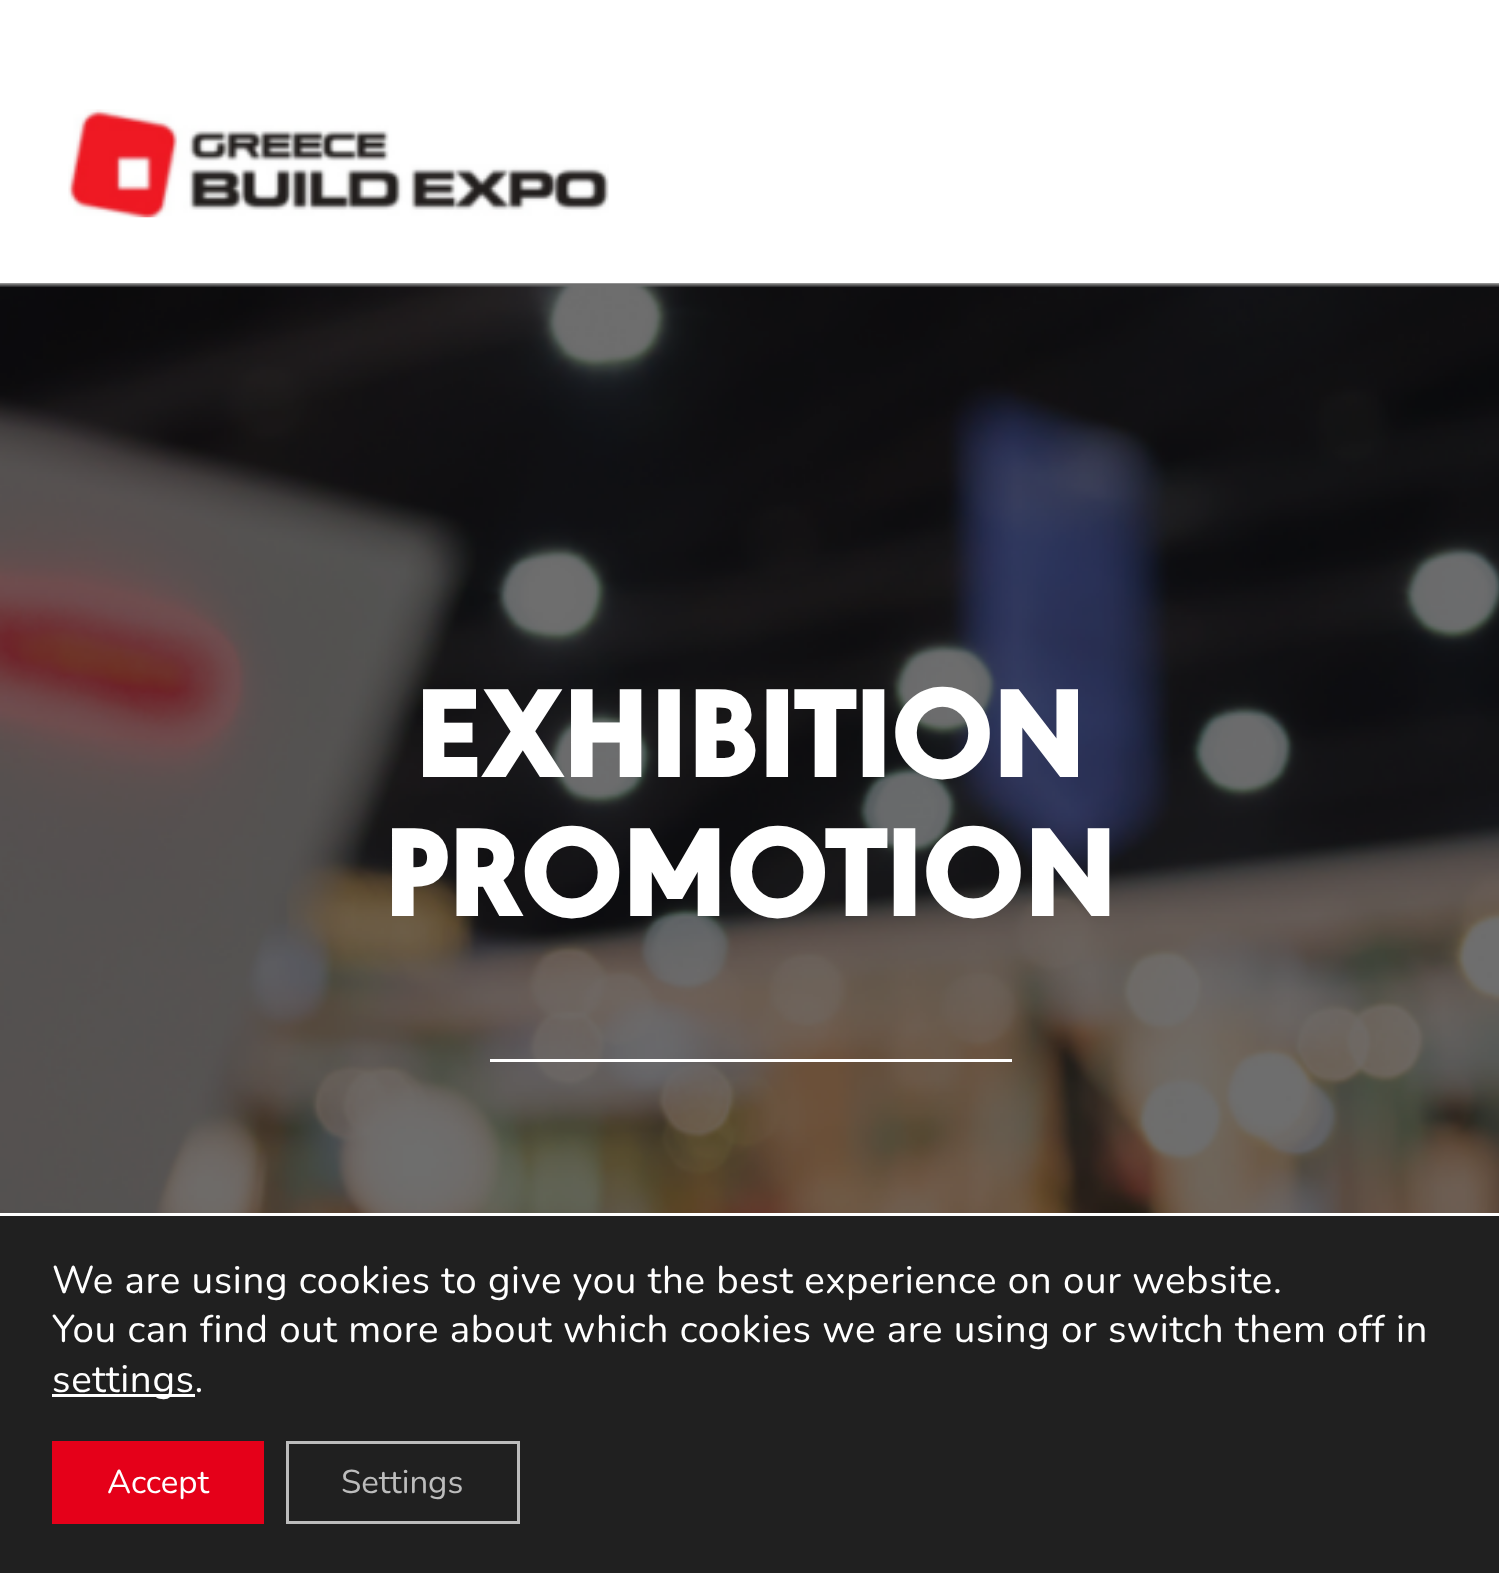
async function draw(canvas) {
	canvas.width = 1499;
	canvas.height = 1573;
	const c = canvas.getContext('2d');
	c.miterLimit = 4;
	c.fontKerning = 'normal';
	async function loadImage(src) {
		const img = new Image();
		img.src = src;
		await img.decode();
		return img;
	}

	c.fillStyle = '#fff';
	c.fillRect(0, 0, 1499, 1573);
	c.drawImage(await loadImage('img1.png'), 68, 109, 541, 109);
	c.drawImage(await loadImage('img2.png'), 0, 283, 1499, 930);
	c.font = '900 131.75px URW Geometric';
	c.fillText('EXHIBITION', 415, 777);
	c.fillText('PROMOTION', 384, 916);
	c.fillRect(490, 1059, 522, 3);
	c.fillStyle = '#202020';
	c.fillRect(0, 1216, 1499, 357);
	c.letterSpacing = '0.65px';
	c.font = '38.5px Nunito';
	c.fillStyle = '#fff';
	c.fillText('We are using cookies to give you the best experience on our website.', 52, 1293);
	c.fillText('You can find out more about which cookies we are using or switch them off in', 52, 1342);
	c.fillRect(52, 1394, 143, 3);
	c.fillText('settings.', 52, 1392);
	c.fillStyle = '#e50019';
	c.fillRect(52, 1441, 212, 83);
	c.letterSpacing = '0px';
	c.font = '33px Nunito';
	c.fillStyle = '#fff';
	c.fillText('Accept', 107, 1493);
	c.strokeStyle = '#bcbcbc';
	c.lineWidth = 3;
	c.strokeRect(287.5, 1442.5, 231, 80);
	c.fillStyle = '#bcbcbc';
	c.fillText('Settings', 341, 1493);
}

draw(document.querySelector('canvas'));
